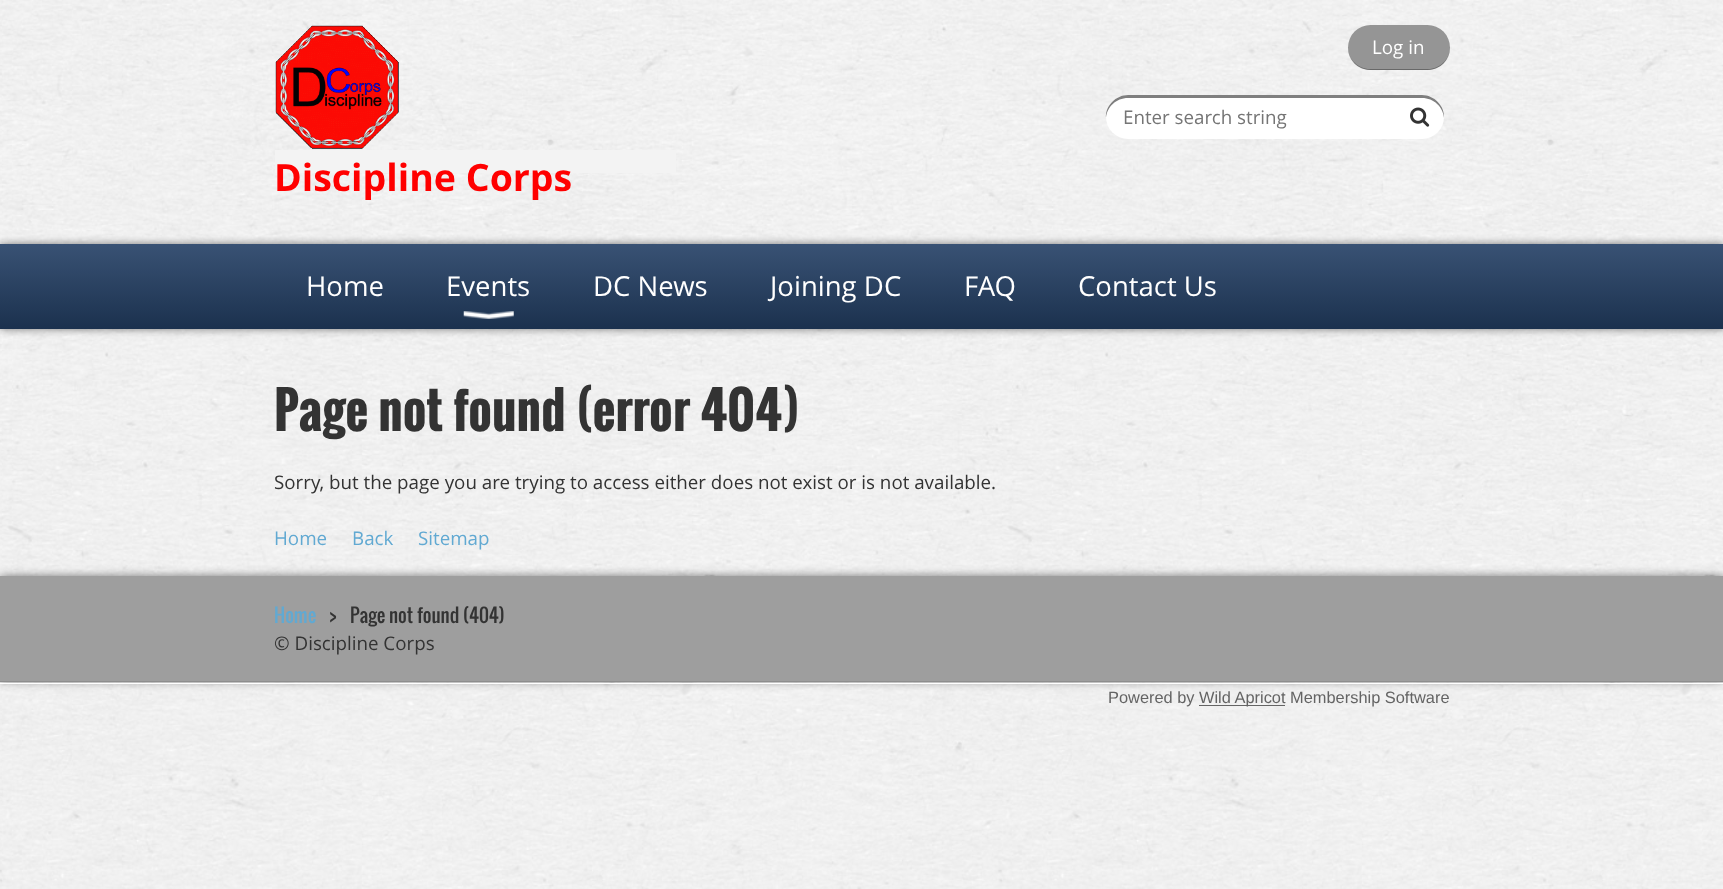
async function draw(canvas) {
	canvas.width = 1723;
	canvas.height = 889;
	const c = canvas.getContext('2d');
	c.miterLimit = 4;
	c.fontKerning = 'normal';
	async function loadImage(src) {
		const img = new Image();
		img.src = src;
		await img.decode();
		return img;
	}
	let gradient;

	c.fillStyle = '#fff';
	c.fillRect(0, 0, 1723, 889);
	c.drawImage(await loadImage('img1.png'), 0, 0, 1723, 889);
	c.fillStyle = '#959595';
	c.beginPath();
	c.roundRect(1348, 25, 102, 45, 22.5);
	c.fill();
	c.fillStyle = '#0000004d';
	c.beginPath();
	c.moveTo(1348, 47);
	c.lineTo(1348, 48);
	c.bezierCurveTo(1348, 60, 1358, 70, 1370, 70);
	c.lineTo(1428, 70);
	c.bezierCurveTo(1440, 70, 1450, 60, 1450, 48);
	c.lineTo(1450, 47);
	c.bezierCurveTo(1450, 59, 1440, 69, 1428, 69);
	c.lineTo(1370, 69);
	c.bezierCurveTo(1358, 69, 1348, 59, 1348, 47);
	c.closePath();
	c.fill();
	c.font = '18.75px Open Sans';
	c.fillStyle = '#fff';
	c.fillText('Log in', 1372, 54);
	c.beginPath();
	c.roundRect(1106, 95, 338, 44, 22);
	c.fill();
	c.fillStyle = '#00000080';
	c.beginPath();
	c.moveTo(1128, 98);
	c.lineTo(1422, 98);
	c.bezierCurveTo(1434, 98, 1443, 107, 1444, 118);
	c.bezierCurveTo(1445, 106, 1434, 95, 1422, 95);
	c.lineTo(1128, 95);
	c.bezierCurveTo(1116, 95, 1105, 106, 1106, 118);
	c.bezierCurveTo(1107, 107, 1116, 98, 1128, 98);
	c.closePath();
	c.fill();
	c.fillStyle = '#757575';
	c.fillText('Enter search string', 1123, 124);
	c.drawImage(await loadImage('img2.png'), 1410, 107, 20, 20);
	c.drawImage(await loadImage('img3.png'), 275, 25, 124, 124);
	c.fillStyle = '#f3f3f3';
	c.fillRect(275, 150, 401, 23);
	c.font = 'bold 37.5px Open Sans';
	c.fillStyle = '#f00';
	c.fillText('Discipline Corps', 274, 191);
	c.fillStyle = '#00000080';
	c.filter = 'blur(4px)';
	c.beginPath();
	c.rect(0, 244, 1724, 85);
	c.fill();
	c.filter = 'none';
	gradient = c.createLinearGradient(862, 244, 862, 329);
	gradient.addColorStop(0, '#395274');
	gradient.addColorStop(1, '#1b314e');
	c.fillStyle = gradient;
	c.fillRect(0, 244, 1723, 85);
	c.font = '27.5px Open Sans';
	c.fillStyle = '#fff';
	c.fillText('Home', 306, 296);
	c.fillText('Events', 446, 296);
	c.drawImage(await loadImage('img4.png'), 463, 311, 51, 8);
	for (const [text, x, y] of [
		['DC News', 593, 296],
		['Joining DC', 770, 296],
		['FAQ', 964, 296],
		['Contact Us', 1078, 296],
	]) {
		c.fillText(text, x, y);
	}
	c.font = 'bold 50px Oswald';
	c.fillStyle = '#333';
	c.fillText('Page not found (error 404)', 274, 431);
	c.font = '18.75px Open Sans';
	c.fillText('Sorry, but the page you are trying to access either does not exist or is not available.', 274, 489);
	c.fillStyle = '#61a9d2';
	for (const [text, x, y] of [
		['Home', 274, 545],
		['Back', 352, 545],
		['Sitemap', 418, 545],
	]) {
		c.fillText(text, x, y);
	}
	c.fillStyle = '#00000080';
	c.filter = 'blur(5px)';
	c.beginPath();
	c.rect(0, 576, 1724, 105);
	c.fill();
	c.filter = 'none';
	c.fillStyle = '#9e9e9e';
	c.fillRect(0, 576, 1723, 105);
	c.font = '18.75px Oswald';
	c.fillStyle = '#61a9d2';
	c.fillText('Home', 274, 623);
	c.fillStyle = '#333';
	c.fillText('>', 329, 623);
	c.fillText('Page not found (404)', 350, 623);
	c.font = '18.75px Open Sans';
	c.fillText('© Discipline Corps', 274, 650);
	c.fillStyle = '#8d8d8d';
	c.fillRect(0, 681, 1723, 1);
	c.fillStyle = '#fff';
	c.fillRect(0, 683, 1723, 1);
	c.font = '16.4px Liberation Sans';
	c.fillStyle = '#646464';
	c.fillText('Powered by', 1108, 703);
	c.fillRect(1199, 705, 86, 1);
	c.fillText('Wild Apricot Membership Software', 1199, 703);
}

draw(document.querySelector('canvas'));
